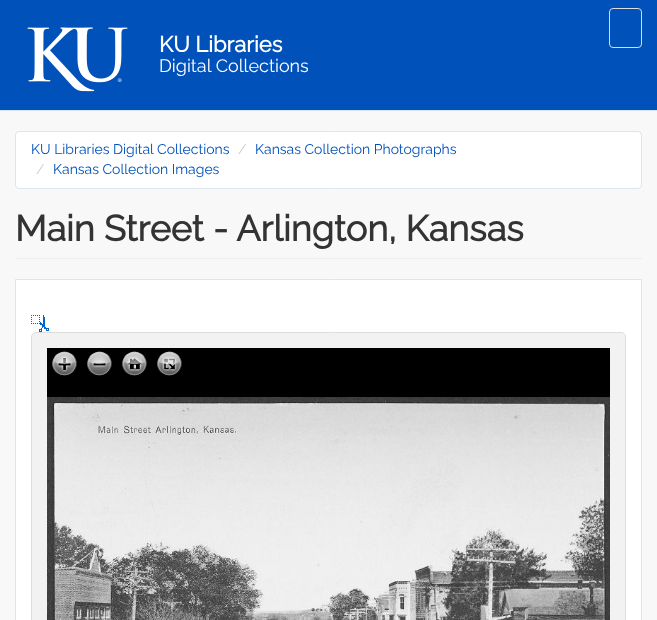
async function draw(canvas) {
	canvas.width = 657;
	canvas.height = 620;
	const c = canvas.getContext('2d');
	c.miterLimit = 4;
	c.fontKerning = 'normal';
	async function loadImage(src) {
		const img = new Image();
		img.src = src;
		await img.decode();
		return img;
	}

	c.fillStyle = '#f8f8f8';
	c.fillRect(0, 0, 657, 620);
	c.fillStyle = '#0051ba';
	c.fillRect(0, 0, 657, 110);
	c.fillStyle = '#d7e3f6';
	c.fillRect(0, 110, 657, 1);
	c.drawImage(await loadImage('img1.png'), 27, 27, 101, 65);
	c.font = 'bold 22px Raleway';
	c.fillStyle = '#fff';
	c.fillText('KU Libraries', 159, 52);
	c.font = '100 18px Raleway';
	c.fillText('Digital Collections', 159, 72);
	c.beginPath();
	c.roundRect(609.5, 8.5, 32, 39, 3.5);
	c.strokeStyle = '#ddd';
	c.stroke();
	c.beginPath();
	c.roundRect(15.5, 131.5, 626, 57, 3.5);
	c.fill();
	c.strokeStyle = '#dde5ed';
	c.stroke();
	c.font = '100 14px Raleway';
	c.fillStyle = '#0051ba';
	c.fillText('KU Libraries Digital Collections', 31, 154);
	c.fillStyle = '#ccc';
	c.fillText('/', 238, 154);
	c.fillStyle = '#0051ba';
	c.fillText('Kansas Collection Photographs', 255, 154);
	c.fillStyle = '#ccc';
	c.fillText('/', 36, 174);
	c.fillStyle = '#0051ba';
	c.fillText('Kansas Collection Images', 53, 174);
	c.fillStyle = '#eee';
	c.fillRect(15, 258, 627, 1);
	c.font = 'bold 36px Raleway';
	c.fillStyle = '#333';
	c.fillText('Main Street - Arlington, Kansas', 15, 241);
	c.fillStyle = '#fff';
	c.beginPath();
	c.rect(15.5, 279.5, 626, 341);
	c.fill();
	c.stroke();
	c.drawImage(await loadImage('img2.png'), 31, 315, 18, 17);
	c.fillStyle = '#f2f2f2';
	c.beginPath();
	c.roundRect(31.5, 332.5, 594, 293, 4.5);
	c.fill();
	c.strokeStyle = '#ddd';
	c.stroke();
	c.fillStyle = '#000';
	c.fillRect(47, 348, 563, 49);
	c.drawImage(await loadImage('img3.png'), 47, 397, 563, 223);
	c.drawImage(await loadImage('img4.png'), 52, 351, 25, 25);
	c.drawImage(await loadImage('img5.png'), 52, 351, 25, 25);
	c.drawImage(await loadImage('img6.png'), 87, 351, 25, 25);
	c.drawImage(await loadImage('img7.png'), 87, 351, 25, 25);
	c.drawImage(await loadImage('img8.png'), 122, 351, 25, 25);
	c.drawImage(await loadImage('img9.png'), 122, 351, 25, 25);
	c.drawImage(await loadImage('img10.png'), 157, 351, 25, 25);
	c.drawImage(await loadImage('img11.png'), 157, 351, 25, 25);
}

draw(document.querySelector('canvas'));
